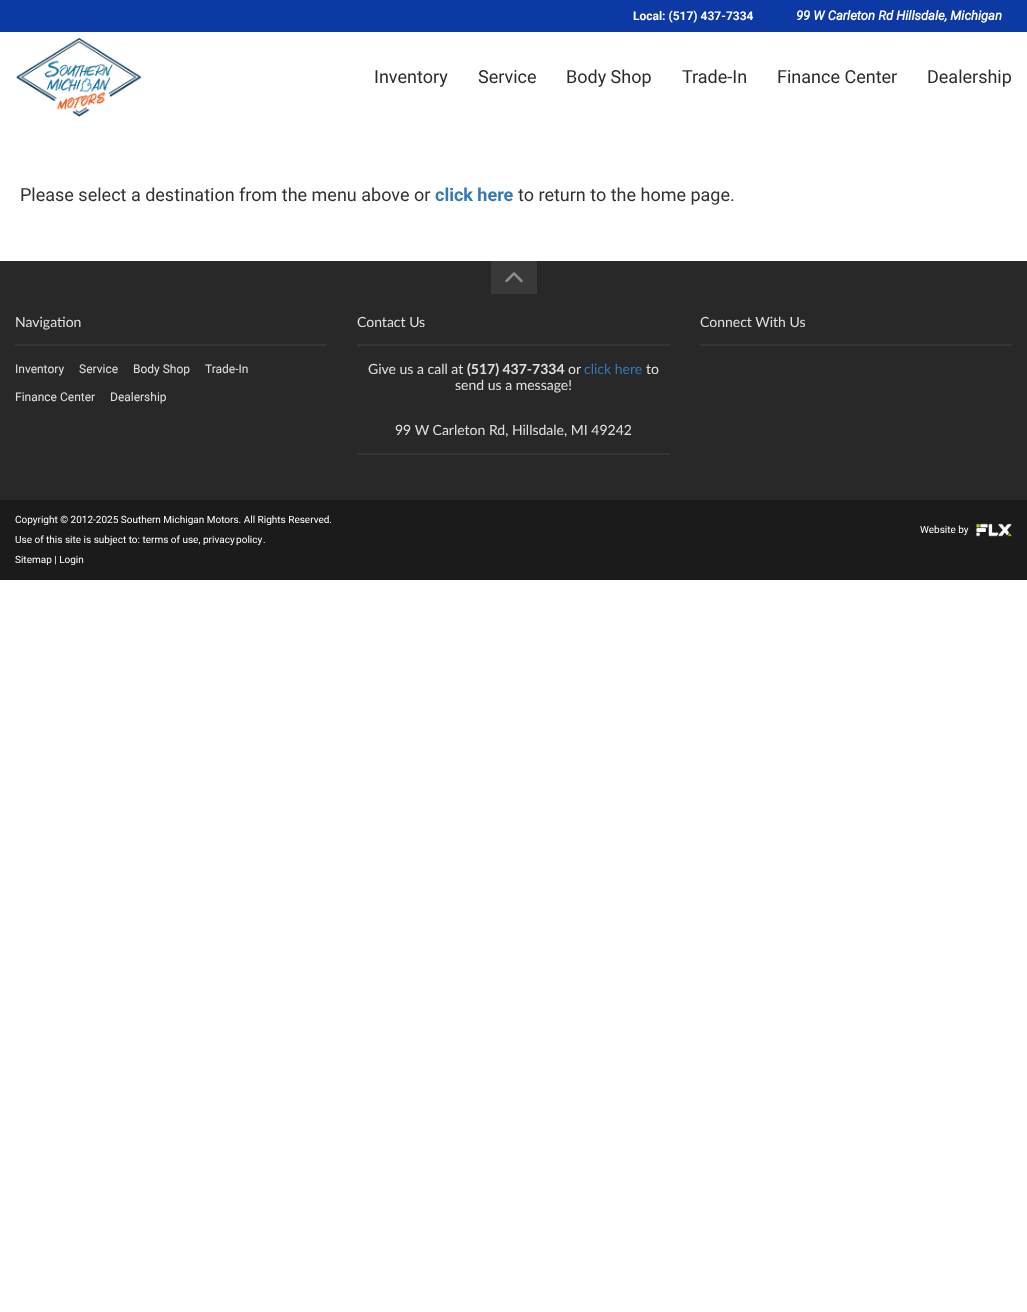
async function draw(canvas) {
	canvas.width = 1027;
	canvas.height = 1312;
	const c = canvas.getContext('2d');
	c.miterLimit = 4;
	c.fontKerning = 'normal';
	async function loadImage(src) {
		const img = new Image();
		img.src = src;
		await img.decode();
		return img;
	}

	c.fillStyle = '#fff';
	c.fillRect(0, 0, 1027, 1312);
	c.fillStyle = '#0d39a4';
	c.fillRect(0, 0, 1027, 32);
	c.font = 'bold 12px Roboto';
	c.fillStyle = '#fff';
	c.fillText('Local: (517) 437-7334', 633, 20);
	c.font = 'italic bold 13px Roboto';
	c.fillText('99 W Carleton Rd Hillsdale, Michigan', 796, 20);
	c.drawImage(await loadImage('img1.png'), 16, 38, 126, 79);
	c.font = '18px Roboto';
	c.fillStyle = '#2c2c2c';
	for (const [text, x, y] of [
		['Inventory', 374, 83],
		['Service', 478, 83],
		['Body Shop', 566, 83],
		['Trade-In', 682, 83],
		['Finance Center', 777, 83],
		['Dealership', 927, 83],
	]) {
		c.fillText(text, x, y);
	}
	c.fillStyle = '#313133';
	c.fillText('Please select a destination from the menu above or', 20, 201);
	c.font = 'bold 18px Roboto';
	c.fillStyle = '#337ab7';
	c.fillText('click here', 435, 201);
	c.font = '18px Roboto';
	c.fillStyle = '#313133';
	c.fillText('to return to the home page.', 518, 201);
	c.fillStyle = '#282828';
	c.fillRect(0, 261, 1027, 239);
	c.fillStyle = '#393939';
	c.fillRect(491, 261, 46, 33);
	c.drawImage(await loadImage('img2.png'), 505, 272, 18, 11);
	c.fillStyle = '#353535';
	c.fillRect(15, 344, 312, 2);
	c.font = '14px Lato';
	c.fillStyle = '#e1e0e0';
	c.fillText('Navigation', 15, 327);
	c.font = '12px Roboto';
	for (const [text, x, y] of [
		['Inventory', 15, 373],
		['Service', 79, 373],
		['Body Shop', 133, 373],
		['Trade-In', 205, 373],
		['Finance Center', 15, 401],
		['Dealership', 110, 401],
	]) {
		c.fillText(text, x, y);
	}
	c.fillStyle = '#353535';
	c.fillRect(357, 344, 313, 2);
	c.font = '14px Lato';
	c.fillStyle = '#e1e0e0';
	c.fillText('Contact Us', 357, 327);
	c.fillText('Give us a call at', 368, 374);
	c.font = 'bold 14px Lato';
	c.fillText('(517) 437-7334', 467, 374);
	c.font = '14px Lato';
	c.fillText('or', 568, 374);
	c.fillStyle = '#337ab7';
	c.fillText('click here', 584, 374);
	c.fillStyle = '#e1e0e0';
	c.fillText('to', 646, 374);
	c.fillText('send us a message!', 455, 390);
	c.fillStyle = '#353535';
	c.fillRect(357, 453, 313, 2);
	c.fillStyle = '#e1e0e0';
	c.fillText('99 W Carleton Rd, Hillsdale, MI 49242', 395, 435);
	c.fillStyle = '#353535';
	c.fillRect(700, 344, 312, 2);
	c.fillStyle = '#e1e0e0';
	c.fillText('Connect With Us', 700, 327);
	c.fillStyle = '#1b1b1b';
	c.fillRect(0, 500, 1027, 80);
	c.font = '10px Roboto';
	c.fillStyle = '#fff';
	c.fillText('Copyright © 2012-2025 Southern Michigan Motors. All Rights Reserved.', 15, 523);
	c.fillText('Use of this site is subject to: terms of use,', 15, 543);
	c.wordSpacing = '-1px';
	c.fillText('privacy policy', 203, 543);
	c.wordSpacing = '0px';
	for (const [text, x, y] of [
		['.', 263, 543],
		['Sitemap | Login', 15, 563],
		['Website by', 920, 533],
	]) {
		c.fillText(text, x, y);
	}
	c.drawImage(await loadImage('img3.png'), 976, 523, 36, 14);
}

draw(document.querySelector('canvas'));
